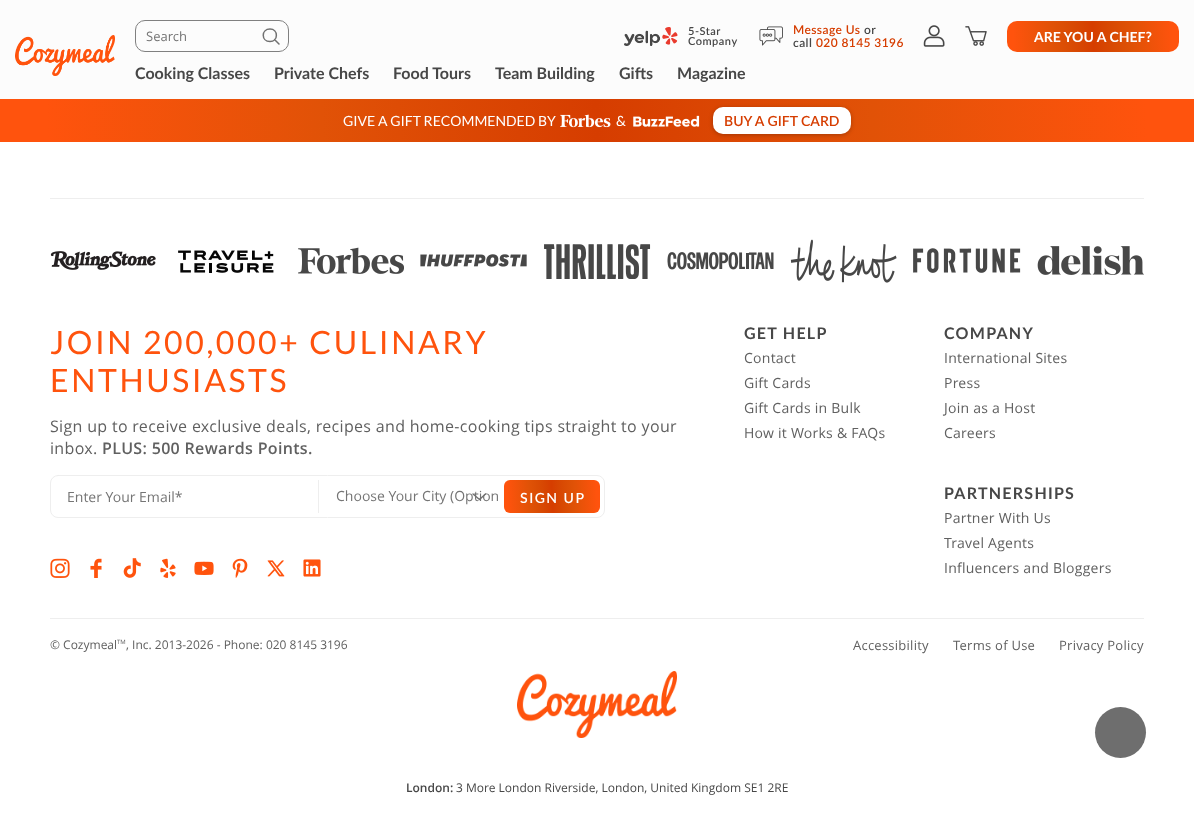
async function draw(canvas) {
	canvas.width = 1194;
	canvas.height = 838;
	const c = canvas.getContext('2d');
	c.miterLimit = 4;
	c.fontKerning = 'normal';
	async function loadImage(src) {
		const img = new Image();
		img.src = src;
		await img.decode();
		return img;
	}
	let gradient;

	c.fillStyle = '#fff';
	c.fillRect(0, 0, 1194, 838);
	c.fillStyle = '#fcfcfc';
	c.fillRect(0, 0, 1194, 99);
	c.drawImage(await loadImage('img1.png'), 15, 35, 100, 41);
	c.beginPath();
	c.roundRect(135.5, 20.5, 153, 31, 9.5);
	c.strokeStyle = '#808080';
	c.stroke();
	c.font = '13px Open Sans';
	c.fillStyle = '#757575';
	c.fillText('Search', 146, 41);
	c.beginPath();
	c.moveTo(270, 41.5);
	c.bezierCurveTo(278.5, 41.5, 278.5, 29, 270, 29);
	c.bezierCurveTo(261, 29, 261, 41.5, 270, 41.5);
	c.closePath();
	c.moveTo(274.5, 39.5);
	c.lineTo(279, 44);
	c.strokeStyle = '#707070';
	c.lineWidth = 1.5;
	c.lineCap = 'round';
	c.lineJoin = 'round';
	c.stroke();
	c.drawImage(await loadImage('img2.png'), 624, 27, 54, 19);
	c.letterSpacing = '0.5px';
	c.font = '600 11px Lato';
	c.fillStyle = '#474747';
	c.fillText('5-Star', 688, 35);
	c.fillText('Company', 688, 45);
	c.drawImage(await loadImage('img3.png'), 759, 26, 24, 20);
	c.letterSpacing = '0.4px';
	c.font = '600 12px Lato';
	c.fillStyle = '#d63d00';
	c.fillText('Message Us', 793, 34);
	c.fillStyle = '#474747';
	c.fillText('or', 864, 34);
	c.fillText('call', 793, 47);
	c.fillStyle = '#d63d00';
	c.fillText('020 8145 3196', 816, 47);
	c.drawImage(await loadImage('img4.png'), 923, 25, 22, 22);
	c.drawImage(await loadImage('img5.png'), 965, 26, 22, 20);
	c.fillStyle = '#ff530d';
	c.beginPath();
	c.roundRect(1007, 21, 172, 31, 10);
	c.fill();
	gradient = c.createLinearGradient(1006, 41, 1180, 32);
	gradient.addColorStop(0.04, '#c2510000');
	gradient.addColorStop(0.27, '#c2510080');
	gradient.addColorStop(0.5, '#d63d00');
	gradient.addColorStop(0.73, '#c2510080');
	gradient.addColorStop(0.96, '#c2510000');
	c.fillStyle = gradient;
	c.fillRect(1014, 21, 158, 31);
	c.letterSpacing = '0px';
	c.font = 'bold 14px Lato';
	c.fillStyle = '#fff';
	c.fillText('ARE YOU A CHEF?', 1034, 42);
	c.font = 'bold 16px Lato';
	c.fillStyle = '#474747';
	for (const [text, x, y] of [
		['Cooking Classes', 135, 79],
		['Private Chefs', 274, 79],
		['Food Tours', 393, 79],
		['Team Building', 495, 79],
		['Gifts', 619, 79],
		['Magazine', 677, 79],
	]) {
		c.fillText(text, x, y);
	}
	gradient = c.createLinearGradient(0.5, 152, 1193, 89);
	gradient.addColorStop(0.04, '#ff530d');
	gradient.addColorStop(0.27, '#e15207');
	gradient.addColorStop(0.5, '#d63d00');
	gradient.addColorStop(0.73, '#e15207');
	gradient.addColorStop(0.96, '#ff530d');
	c.fillStyle = gradient;
	c.fillRect(0, 99, 1194, 43);
	c.font = '14px Lato';
	c.fillStyle = '#fff';
	c.fillText('GIVE A GIFT RECOMMENDED BY', 343, 126);
	c.drawImage(await loadImage('img6.png'), 560, 114, 51, 14);
	c.fillText('&', 616, 126);
	c.drawImage(await loadImage('img7.png'), 633, 115, 67, 12);
	c.fillStyle = '#00000040';
	c.filter = 'blur(2px)';
	c.beginPath();
	c.roundRect(713, 108, 138, 27, 10);
	c.fill();
	c.filter = 'none';
	c.fillStyle = '#fff';
	c.beginPath();
	c.roundRect(713, 107, 138, 27, 10);
	c.fill();
	c.font = '600 14px Lato';
	c.fillStyle = '#d63d00';
	c.fillText('BUY A GIFT CARD', 724, 126);
	c.fillStyle = '#eee';
	c.fillRect(50, 198, 1094, 1);
	c.drawImage(await loadImage('img8.png'), 50, 251, 106, 19);
	c.drawImage(await loadImage('img9.png'), 178, 250, 96, 23);
	c.drawImage(await loadImage('img10.png'), 298, 247, 106, 27);
	c.drawImage(await loadImage('img11.png'), 420, 254, 107, 13);
	c.drawImage(await loadImage('img12.png'), 544, 244, 107, 35);
	c.drawImage(await loadImage('img13.png'), 667, 252, 107, 18);
	c.drawImage(await loadImage('img14.png'), 790, 239, 107, 44);
	c.drawImage(await loadImage('img15.png'), 913, 248, 108, 25);
	c.drawImage(await loadImage('img16.png'), 1037, 246, 107, 29);
	c.letterSpacing = '2.6px';
	c.font = '32px Lato';
	c.fillStyle = '#ff530d';
	c.fillText('JOIN 200,000+ CULINARY', 50, 354);
	c.fillText('ENTHUSIASTS', 50, 392);
	c.letterSpacing = '0.32px';
	c.font = '16px Open Sans';
	c.fillStyle = '#606060';
	c.fillText('Sign up to receive exclusive deals, recipes and home-cooking tips straight to your', 50, 432);
	c.fillText('inbox.', 50, 454);
	c.font = '600 16px Open Sans';
	c.fillText('PLUS: 500 Rewards Points.', 102, 454);
	c.beginPath();
	c.roundRect(50.5, 475.5, 554, 42, 7.5);
	c.strokeStyle = '#eee';
	c.lineWidth = 1;
	c.lineJoin = 'miter';
	c.stroke();
	c.letterSpacing = '0px';
	c.font = '14px Open Sans';
	c.fillStyle = '#757575';
	c.fillText('Enter Your Email*', 67, 502);
	c.fillStyle = '#eee';
	c.fillRect(318, 480, 1, 33);
	c.fillStyle = '#757575';
	c.fillText('Choose Your City (Option', 336, 501);
	c.beginPath();
	c.moveTo(485.5, 494);
	c.lineTo(479.5, 499.5);
	c.lineTo(473, 494);
	c.strokeStyle = '#707070';
	c.lineWidth = 1.4;
	c.lineJoin = 'round';
	c.stroke();
	c.fillStyle = '#ff530d';
	c.beginPath();
	c.roundRect(504, 480, 96, 33, 6);
	c.fill();
	gradient = c.createLinearGradient(503, 499, 601, 494);
	gradient.addColorStop(0.04, '#c2510000');
	gradient.addColorStop(0.27, '#c2510080');
	gradient.addColorStop(0.5, '#d63d00');
	gradient.addColorStop(0.73, '#c2510080');
	gradient.addColorStop(0.96, '#c2510000');
	c.fillStyle = gradient;
	c.fillRect(507, 480, 90, 33);
	c.letterSpacing = '1.5px';
	c.font = '600 14px Lato';
	c.fillStyle = '#fff';
	c.fillText('SIGN UP', 520, 503);
	c.drawImage(await loadImage('img17.png'), 50, 558, 20, 20);
	c.drawImage(await loadImage('img18.png'), 90, 558, 12, 20);
	c.drawImage(await loadImage('img19.png'), 123, 558, 18, 20);
	c.drawImage(await loadImage('img20.png'), 160, 558, 16, 20);
	c.drawImage(await loadImage('img21.png'), 194, 561, 20, 14);
	c.drawImage(await loadImage('img22.png'), 232, 558, 16, 20);
	c.drawImage(await loadImage('img23.png'), 267, 560, 18, 17);
	c.drawImage(await loadImage('img24.png'), 303, 559, 18, 18);
	c.letterSpacing = '1.25px';
	c.font = 'bold 16px Lato';
	c.fillStyle = '#474747';
	c.fillText('GET HELP', 744, 339);
	c.letterSpacing = '0.25px';
	c.font = '14px Open Sans';
	c.fillStyle = '#606060';
	for (const [text, x, y] of [
		['Contact', 744, 363],
		['Gift Cards', 744, 388],
		['Gift Cards in Bulk', 744, 413],
		['How it Works & FAQs', 744, 438],
	]) {
		c.fillText(text, x, y);
	}
	c.letterSpacing = '1.25px';
	c.font = 'bold 16px Lato';
	c.fillStyle = '#474747';
	c.fillText('COMPANY', 944, 339);
	c.letterSpacing = '0.25px';
	c.font = '14px Open Sans';
	c.fillStyle = '#606060';
	for (const [text, x, y] of [
		['International Sites', 944, 363],
		['Press', 944, 388],
		['Join as a Host', 944, 413],
		['Careers', 944, 438],
	]) {
		c.fillText(text, x, y);
	}
	c.letterSpacing = '1.25px';
	c.font = 'bold 16px Lato';
	c.fillStyle = '#474747';
	c.fillText('PARTNERSHIPS', 944, 499);
	c.letterSpacing = '0.25px';
	c.font = '14px Open Sans';
	c.fillStyle = '#606060';
	for (const [text, x, y] of [
		['Partner With Us', 944, 523],
		['Travel Agents', 944, 548],
		['Influencers and Bloggers', 944, 573],
	]) {
		c.fillText(text, x, y);
	}
	c.fillStyle = '#eee';
	c.fillRect(50, 618, 1094, 1);
	c.letterSpacing = '0px';
	c.font = '12px Open Sans';
	c.fillStyle = '#606060';
	c.fillText('© Cozymeal', 50, 649);
	c.font = '6px Open Sans';
	c.fillText('TM', 117, 644);
	c.font = '12px Open Sans';
	c.fillText(', Inc. 2013-2026 - Phone: 020 8145 3196', 126, 649);
	c.letterSpacing = '0.25px';
	c.font = '13px Open Sans';
	for (const [text, x, y] of [
		['Accessibility', 853, 650],
		['Terms of Use', 953, 650],
		['Privacy Policy', 1059, 650],
	]) {
		c.fillText(text, x, y);
	}
	c.drawImage(await loadImage('img25.png'), 517, 671, 160, 67);
	c.letterSpacing = '0px';
	c.font = '600 12px Open Sans';
	c.fillStyle = '#474747';
	c.fillText('London:', 406, 792);
	c.font = '12px Open Sans';
	c.fillText('3 More London Riverside, London, United Kingdom SE1 2RE', 456, 792);
	c.fillStyle = '#6e6e6e';
	c.beginPath();
	c.arc(1120.5, 732.5, 25.5, 0, 2 * Math.PI);
	c.fill();
}

draw(document.querySelector('canvas'));
